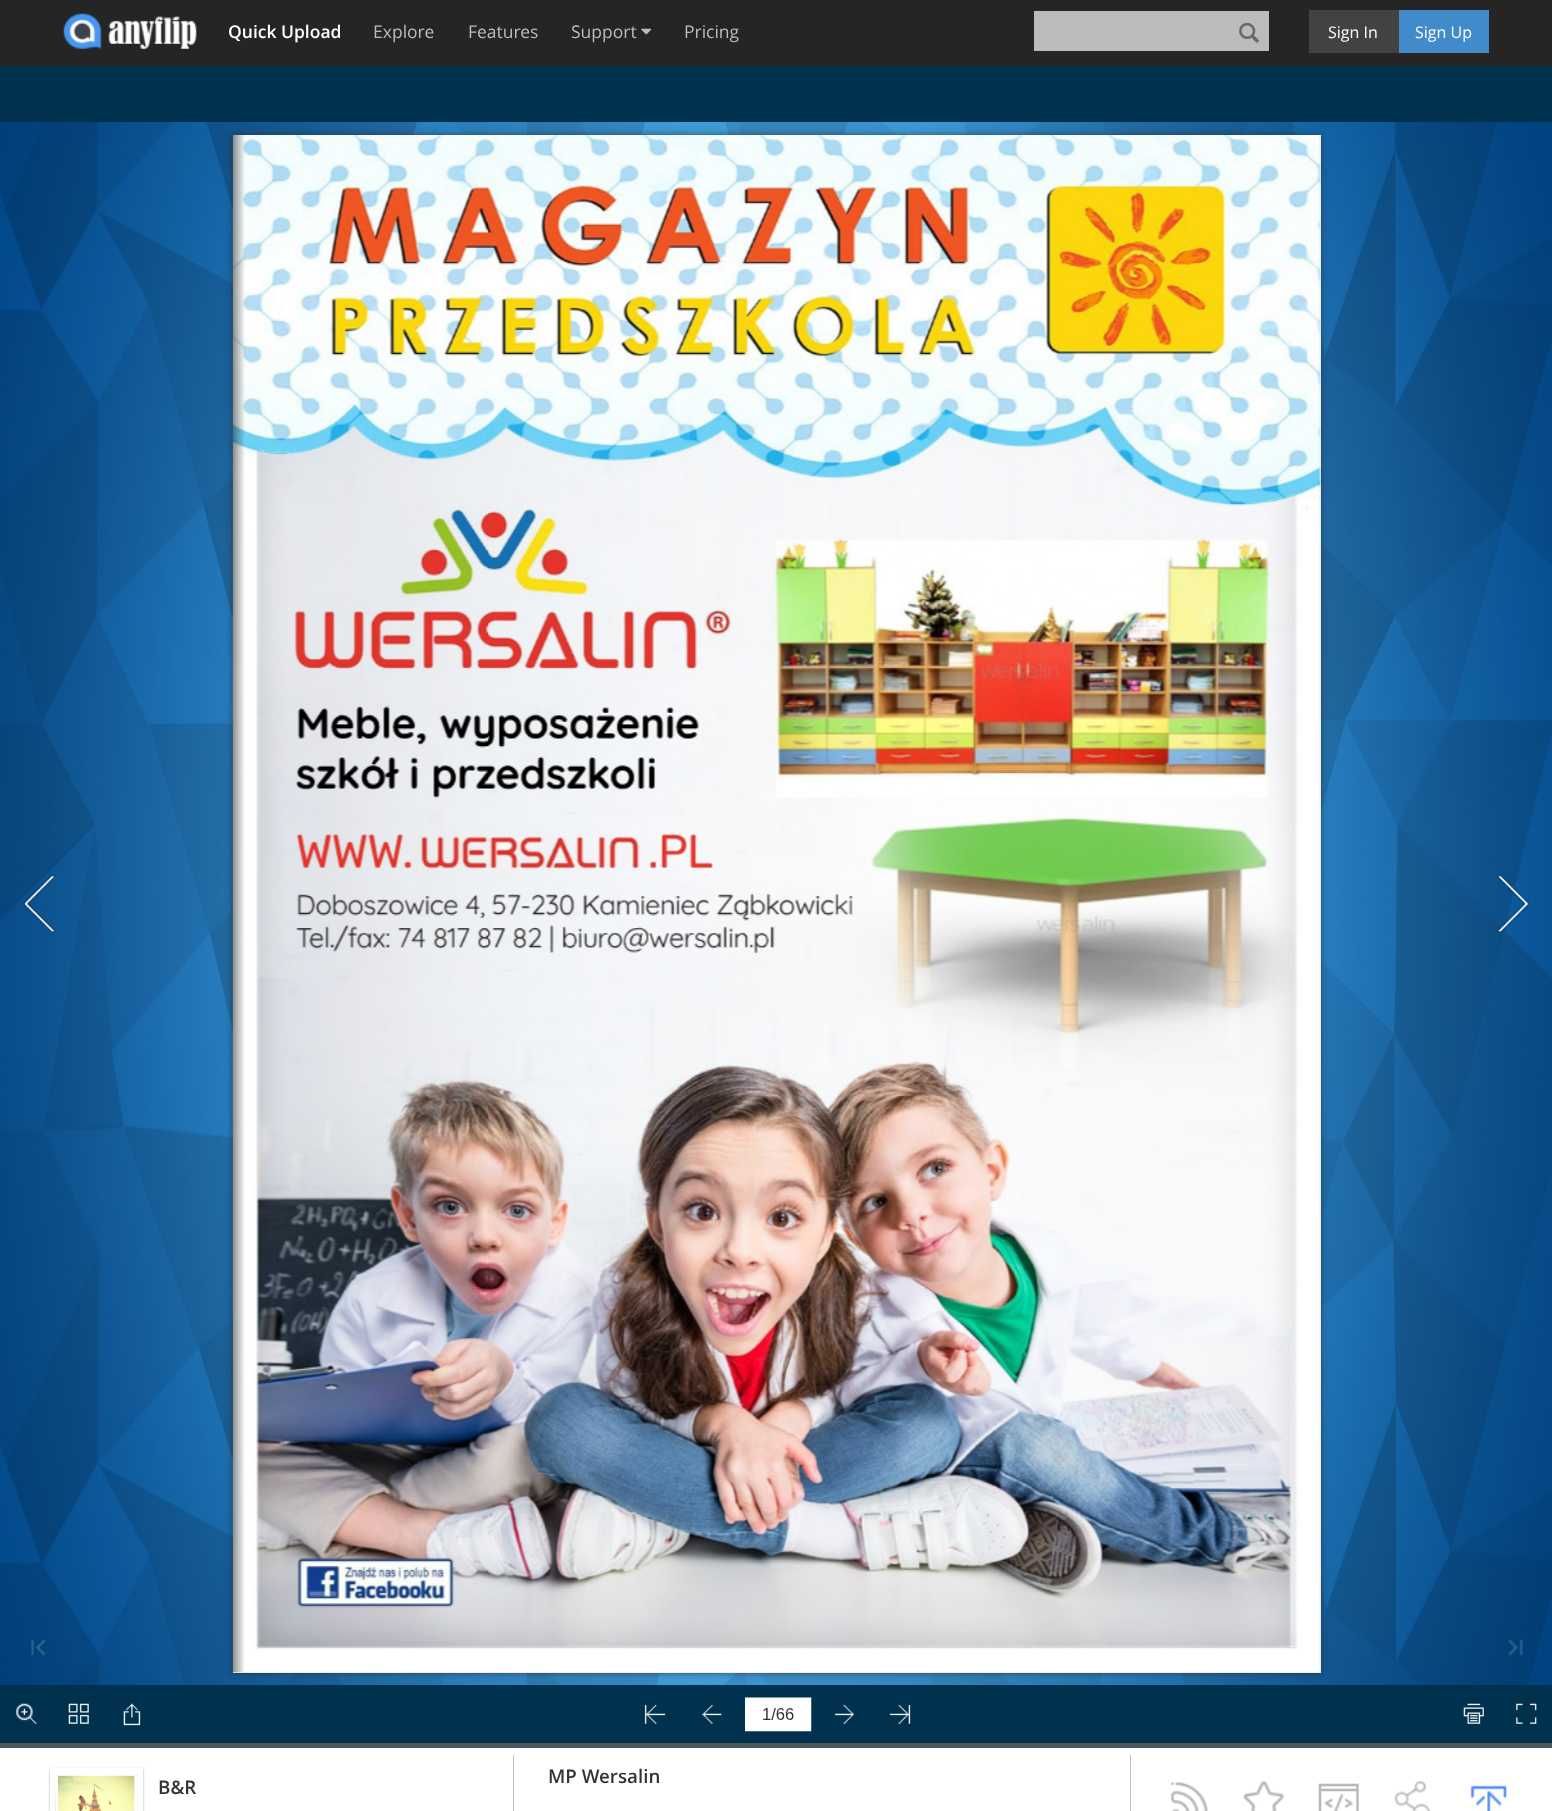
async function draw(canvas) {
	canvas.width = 1552;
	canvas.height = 1811;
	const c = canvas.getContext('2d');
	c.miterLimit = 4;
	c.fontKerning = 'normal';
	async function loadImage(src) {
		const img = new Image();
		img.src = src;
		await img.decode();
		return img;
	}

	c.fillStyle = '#fff';
	c.fillRect(0, 0, 1552, 1811);
	c.fillStyle = '#252525';
	c.fillRect(0, 0, 1552, 66);
	c.drawImage(await loadImage('img1.png'), 63, 13, 134, 36);
	c.font = '600 17.5px Open Sans';
	c.fillStyle = '#fff';
	c.fillText('Quick Upload', 228, 38);
	c.font = '17.5px Open Sans';
	c.fillStyle = '#bbb';
	for (const [text, x, y] of [
		['Explore', 373, 38],
		['Features', 468, 38],
		['Support', 571, 38],
	]) {
		c.fillText(text, x, y);
	}
	c.drawImage(await loadImage('img2.png'), 641, 28, 11, 7);
	c.fillText('Pricing', 684, 38);
	c.fillRect(1034, 11, 235, 40);
	c.drawImage(await loadImage('img3.png'), 1239, 22, 20, 21);
	c.fillStyle = '#424242';
	c.fillRect(1309, 10, 90, 43);
	c.font = '16px Open Sans';
	c.fillStyle = '#fff';
	c.fillText('Sign In', 1328, 38);
	c.fillStyle = '#428bca';
	c.fillRect(1399, 10, 90, 43);
	c.fillStyle = '#fff';
	c.fillText('Sign Up', 1415, 38);
	c.fillStyle = '#4b555a';
	c.fillRect(0, 1743, 1552, 5);
	c.drawImage(await loadImage('img4.png'), 0, 66, 1552, 1677);
	c.fillStyle = '#b2c7c7';
	c.fillRect(513, 1755, 1, 56);
	c.font = '600 18.75px Open Sans';
	c.fillStyle = '#333';
	c.fillText('MP Wersalin', 548, 1783);
	c.fillStyle = '#b2c7c7';
	c.fillRect(1130, 1755, 1, 56);
	c.fillStyle = '#aba7a7';
	c.filter = 'blur(1px)';
	c.beginPath();
	c.rect(50, 1769, 93, 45);
	c.fill();
	c.filter = 'none';
	c.fillStyle = '#f5f5f5';
	c.fillRect(137, 1773, 1, 38);
	c.strokeStyle = '#fff';
	c.lineWidth = 5;
	c.strokeRect(52.5, 1770.5, 88, 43);
	c.drawImage(await loadImage('img5.png'), 55, 1773, 82, 38);
	c.fillStyle = '#333';
	c.fillText('B&R', 158, 1794);
	c.drawImage(await loadImage('img6.png'), 1171, 1782, 37, 29);
	c.drawImage(await loadImage('img7.png'), 1243, 1781, 41, 30);
	c.drawImage(await loadImage('img8.png'), 1318, 1783, 41, 28);
	c.drawImage(await loadImage('img9.png'), 1394, 1781, 37, 30);
	c.drawImage(await loadImage('img10.png'), 1470, 1785, 38, 26);
}

draw(document.querySelector('canvas'));
